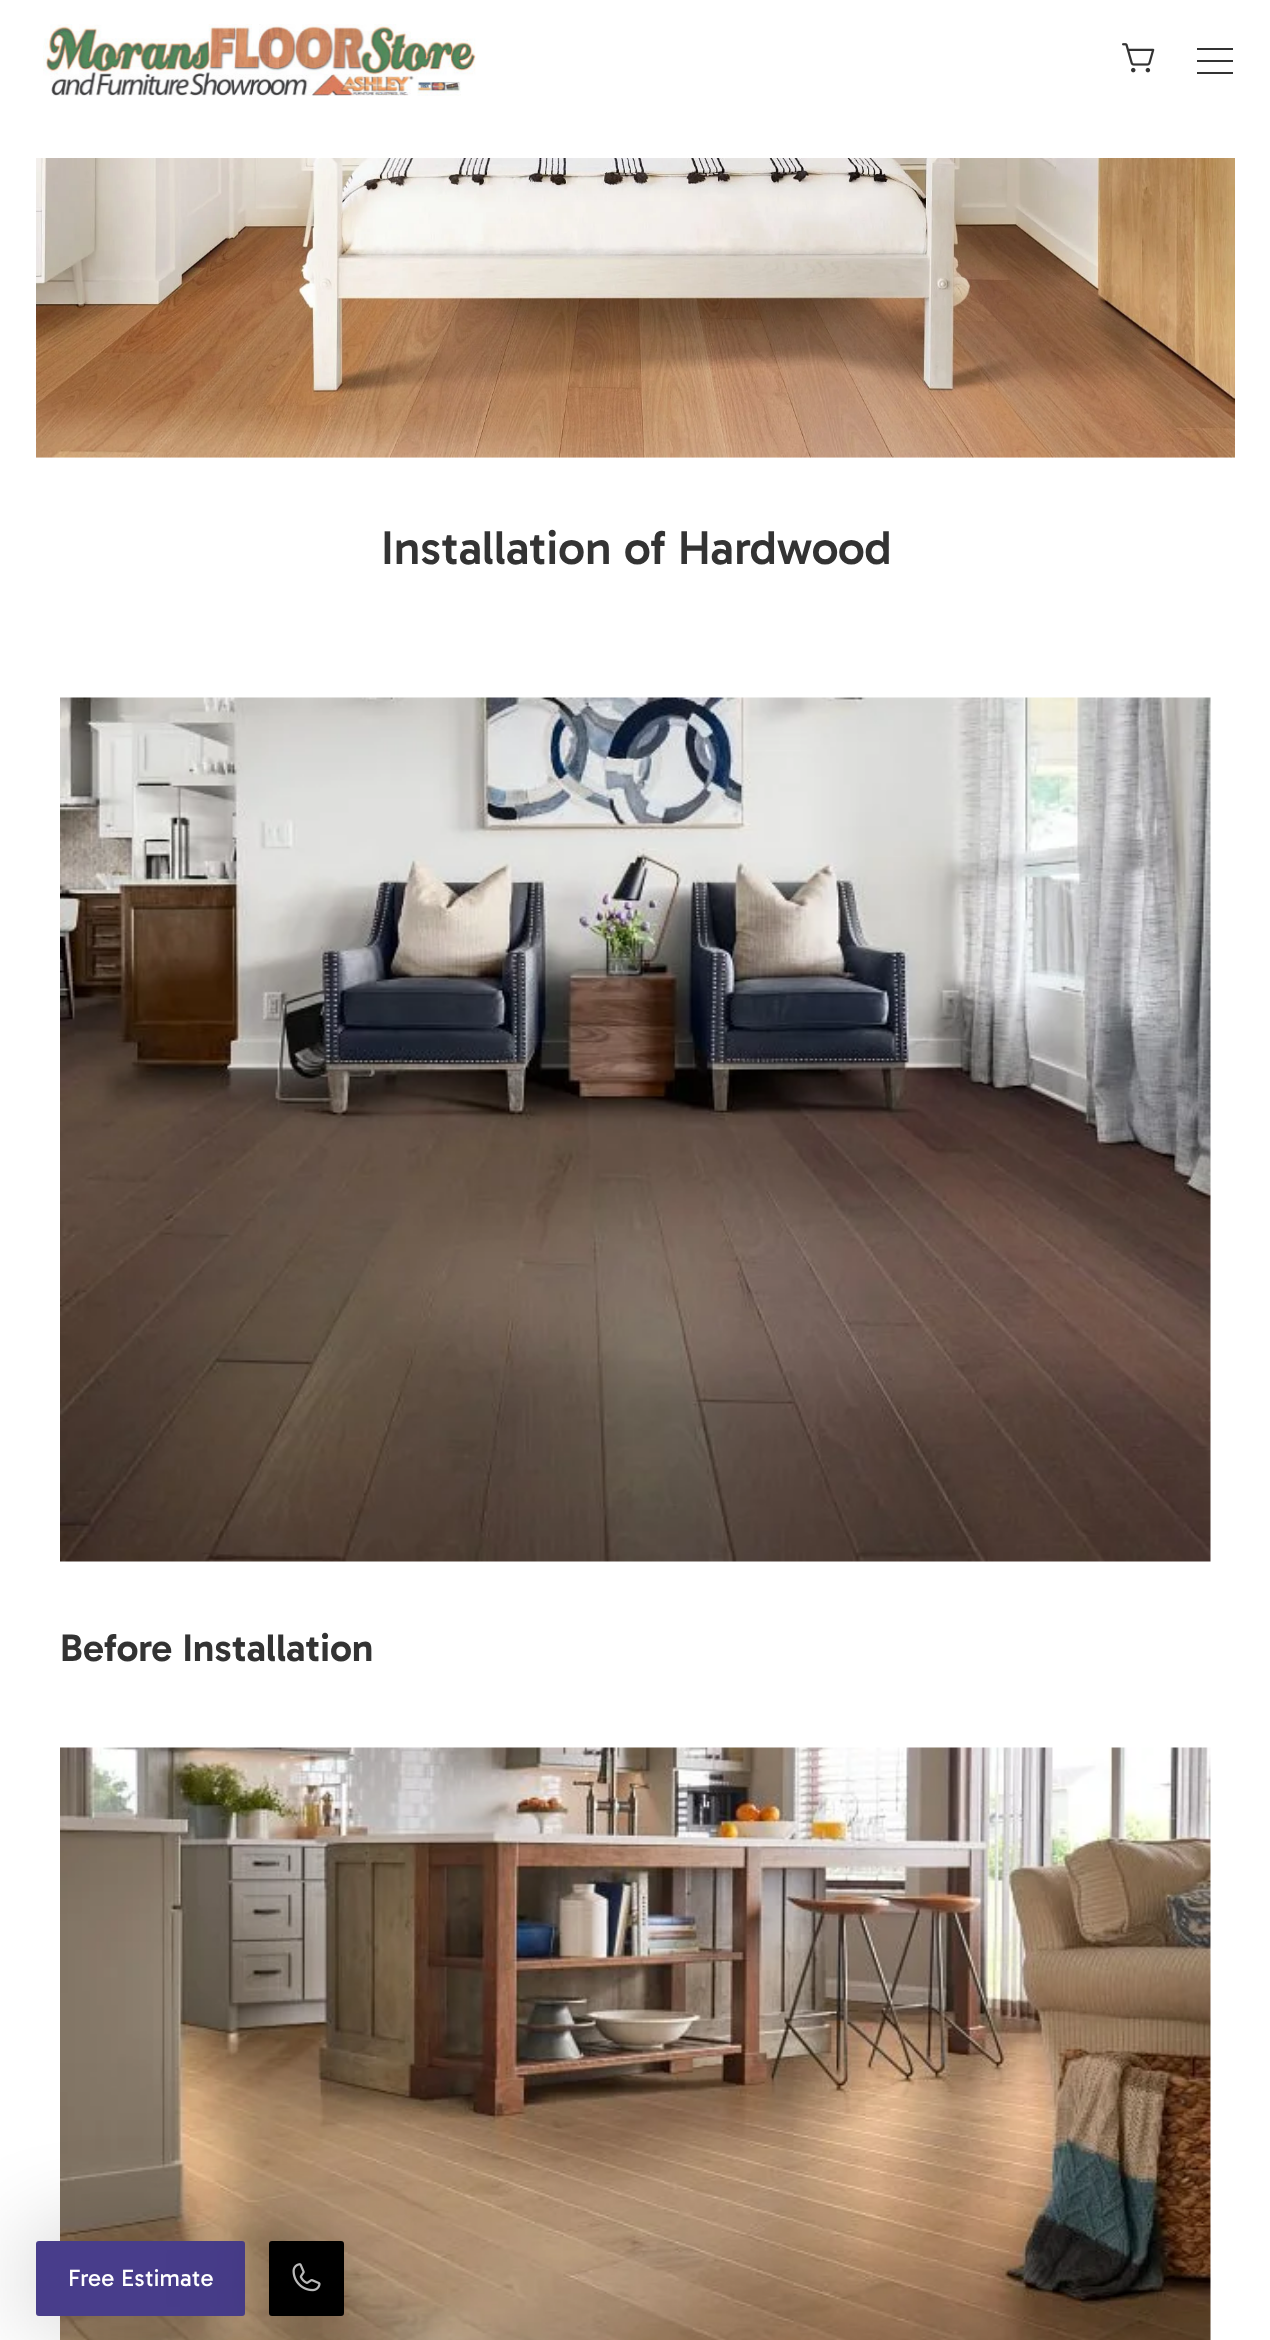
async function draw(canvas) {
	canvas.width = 1270;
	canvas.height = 2340;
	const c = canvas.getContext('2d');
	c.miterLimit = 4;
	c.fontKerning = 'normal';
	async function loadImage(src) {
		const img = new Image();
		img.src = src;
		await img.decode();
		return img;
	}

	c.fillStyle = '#fff';
	c.fillRect(0, 0, 1270, 2340);
	c.drawImage(await loadImage('img1.png'), 36, 158, 1199, 300);
	c.letterSpacing = '-0.1px';
	c.font = '500 48px Gabarito';
	c.fillStyle = '#333';
	c.fillText('Installation of Hardwood', 381, 564);
	c.drawImage(await loadImage('img2.png'), 60, 697, 1151, 865);
	c.letterSpacing = '0px';
	c.font = '600 39px Gabarito';
	c.fillText('Before Installation', 60, 1661);
	c.drawImage(await loadImage('img3.png'), 60, 1747, 1151, 593);
	c.drawImage(await loadImage('img4.png'), 43, 24, 433, 72);
	c.drawImage(await loadImage('img5.png'), 1122, 43, 33, 30);
	for (const [x, y, w, h, color] of [
		[1197, 60, 36, 2, '#333'],
		[1197, 48, 36, 2, '#333'],
		[1197, 72, 36, 2, '#333'],
	]) {
		c.fillStyle = color;
		c.fillRect(x, y, w, h);
	}
	c.fillStyle = '#00000040';
	c.filter = 'blur(48px)';
	c.beginPath();
	c.roundRect(36, 2241, 209, 75, 3);
	c.fill();
	c.filter = 'none';
	c.fillStyle = '#483d8b';
	c.beginPath();
	c.roundRect(37, 2242, 207, 73, 2);
	c.fill();
	c.strokeStyle = '#483d8b';
	c.lineWidth = 2;
	c.stroke();
	c.fillStyle = '#00000040';
	c.filter = 'blur(48px)';
	c.beginPath();
	c.roundRect(269, 2241, 75, 75, 3);
	c.fill();
	c.filter = 'none';
	c.fillStyle = '#000';
	c.beginPath();
	c.roundRect(270, 2242, 73, 73, 2);
	c.fill();
	c.strokeStyle = '#000';
	c.stroke();
	c.drawImage(await loadImage('img6.png'), 292, 2263, 29, 29);
	c.letterSpacing = '0.25px';
	c.font = '24px Gabarito';
	c.fillStyle = '#fff';
	c.fillText('Free Estimate', 68, 2286);
}

draw(document.querySelector('canvas'));
